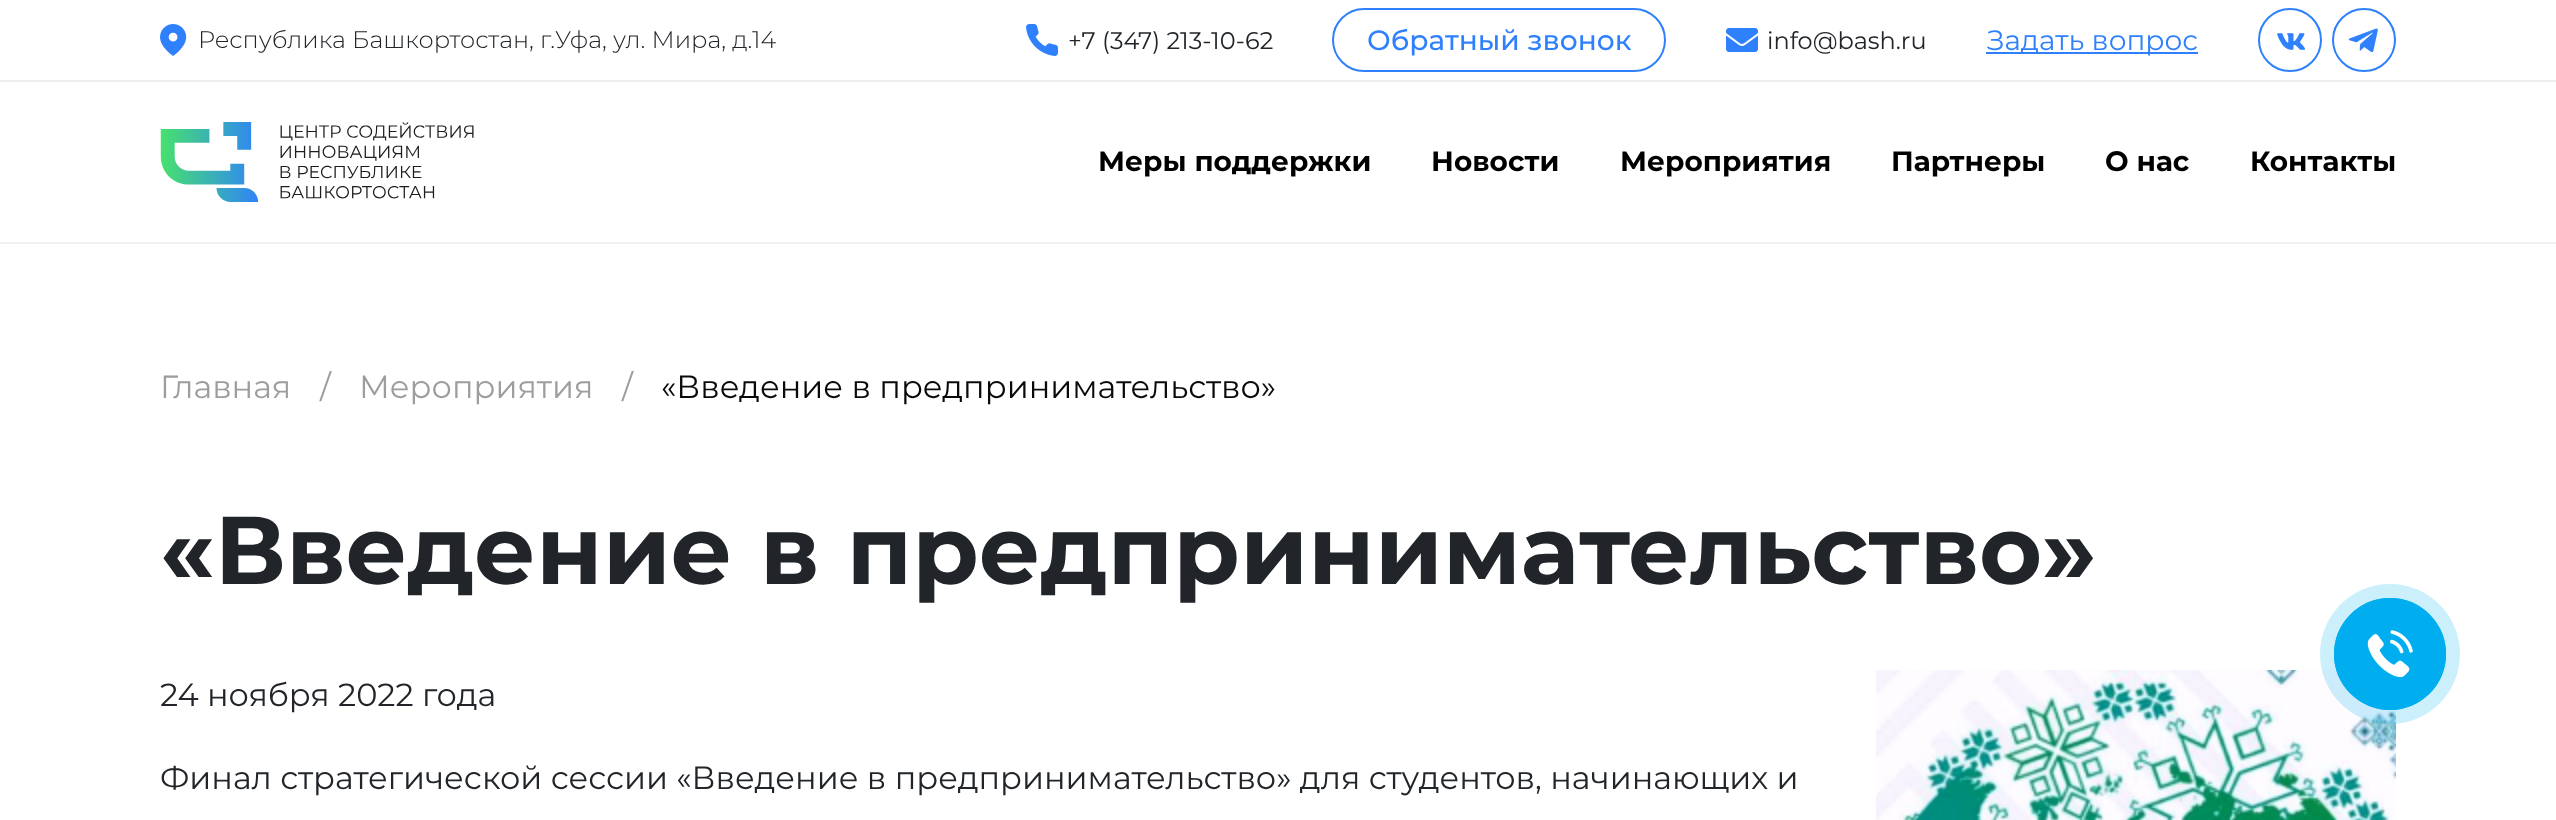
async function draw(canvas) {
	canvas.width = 2556;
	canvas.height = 820;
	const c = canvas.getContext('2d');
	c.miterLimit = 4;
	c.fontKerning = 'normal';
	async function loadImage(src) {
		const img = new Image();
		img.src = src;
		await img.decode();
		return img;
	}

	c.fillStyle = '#fff';
	c.fillRect(0, 0, 2556, 820);
	c.fillStyle = '#eee';
	c.fillRect(0, 80, 2556, 2);
	c.drawImage(await loadImage('img1.png'), 160, 24, 27, 32);
	c.font = '300 24px Montserrat';
	c.fillStyle = '#212529';
	c.fillText('Республика Башкортостан, г.Уфа, ул. Мира, д.14', 198, 48);
	c.drawImage(await loadImage('img2.png'), 1026, 24, 32, 32);
	c.font = '24px Montserrat';
	c.fillText('+7 (347) 213-10-62', 1068, 49);
	c.beginPath();
	c.roundRect(1333, 9, 332, 62, 31);
	c.strokeStyle = '#2e80fc';
	c.lineWidth = 2;
	c.stroke();
	c.font = '500 28px Montserrat';
	c.fillStyle = '#2e80fc';
	c.fillText('Обратный звонок', 1367, 50);
	c.drawImage(await loadImage('img3.png'), 1726, 28, 32, 24);
	c.font = '24px Montserrat';
	c.fillStyle = '#212529';
	c.fillText('info@bash.ru', 1767, 49);
	c.fillStyle = '#2e80fc';
	c.fillRect(1986, 52, 212, 2);
	c.font = '28px Montserrat';
	c.fillText('Задать вопрос', 1987, 50);
	c.beginPath();
	c.arc(2290, 40, 31, 0, 2 * Math.PI);
	c.stroke();
	c.drawImage(await loadImage('img4.png'), 2277, 33, 28, 17);
	c.beginPath();
	c.arc(2364, 40, 31, 0, 2 * Math.PI);
	c.stroke();
	c.drawImage(await loadImage('img5.png'), 2348, 28, 30, 24);
	c.fillStyle = '#f0f0f0';
	c.fillRect(0, 242, 2556, 2);
	c.drawImage(await loadImage('img6.png'), 160, 122, 314, 80);
	c.font = 'bold 28px Montserrat';
	c.fillStyle = '#000';
	for (const [text, x, y] of [
		['Меры поддержки', 1098, 171],
		['Новости', 1431, 171],
		['Мероприятия', 1620, 171],
		['Партнеры', 1891, 171],
		['О нас', 2105, 171],
		['Контакты', 2250, 171],
	]) {
		c.fillText(text, x, y);
	}
	c.font = '32px Montserrat';
	c.fillStyle = '#9d9d9d';
	for (const [text, x, y] of [
		['Главная', 160, 398],
		['/', 320, 398],
		['Мероприятия', 359, 398],
		['/', 622, 398],
	]) {
		c.fillText(text, x, y);
	}
	c.fillStyle = '#090909';
	c.fillText('«Введение в предпринимательство»', 661, 398);
	c.font = 'bold 96px Montserrat';
	c.fillStyle = '#212529';
	c.fillText('«Введение в предпринимательство»', 160, 584);
	c.font = '32px Montserrat';
	c.fillText('24 ноября 2022 года', 160, 706);
	c.drawImage(await loadImage('img7.png'), 1876, 670, 520, 150);
	c.fillText('Финал стратегической сессии «Введение в предпринимательство» для студентов, начинающих и', 160, 789);
	c.fillStyle = '#00aeef33';
	c.beginPath();
	c.arc(2390, 654, 70, 0, 2 * Math.PI);
	c.fill();
	c.beginPath();
	c.arc(2390, 654, 55, 0, 2 * Math.PI);
	c.strokeStyle = '#00aeef';
	c.stroke();
	c.fillStyle = '#00aeef';
	c.beginPath();
	c.arc(2390, 654, 56, 0, 2 * Math.PI);
	c.fill();
	c.drawImage(await loadImage('img8.png'), 2367, 630, 46, 48);
}

draw(document.querySelector('canvas'));
